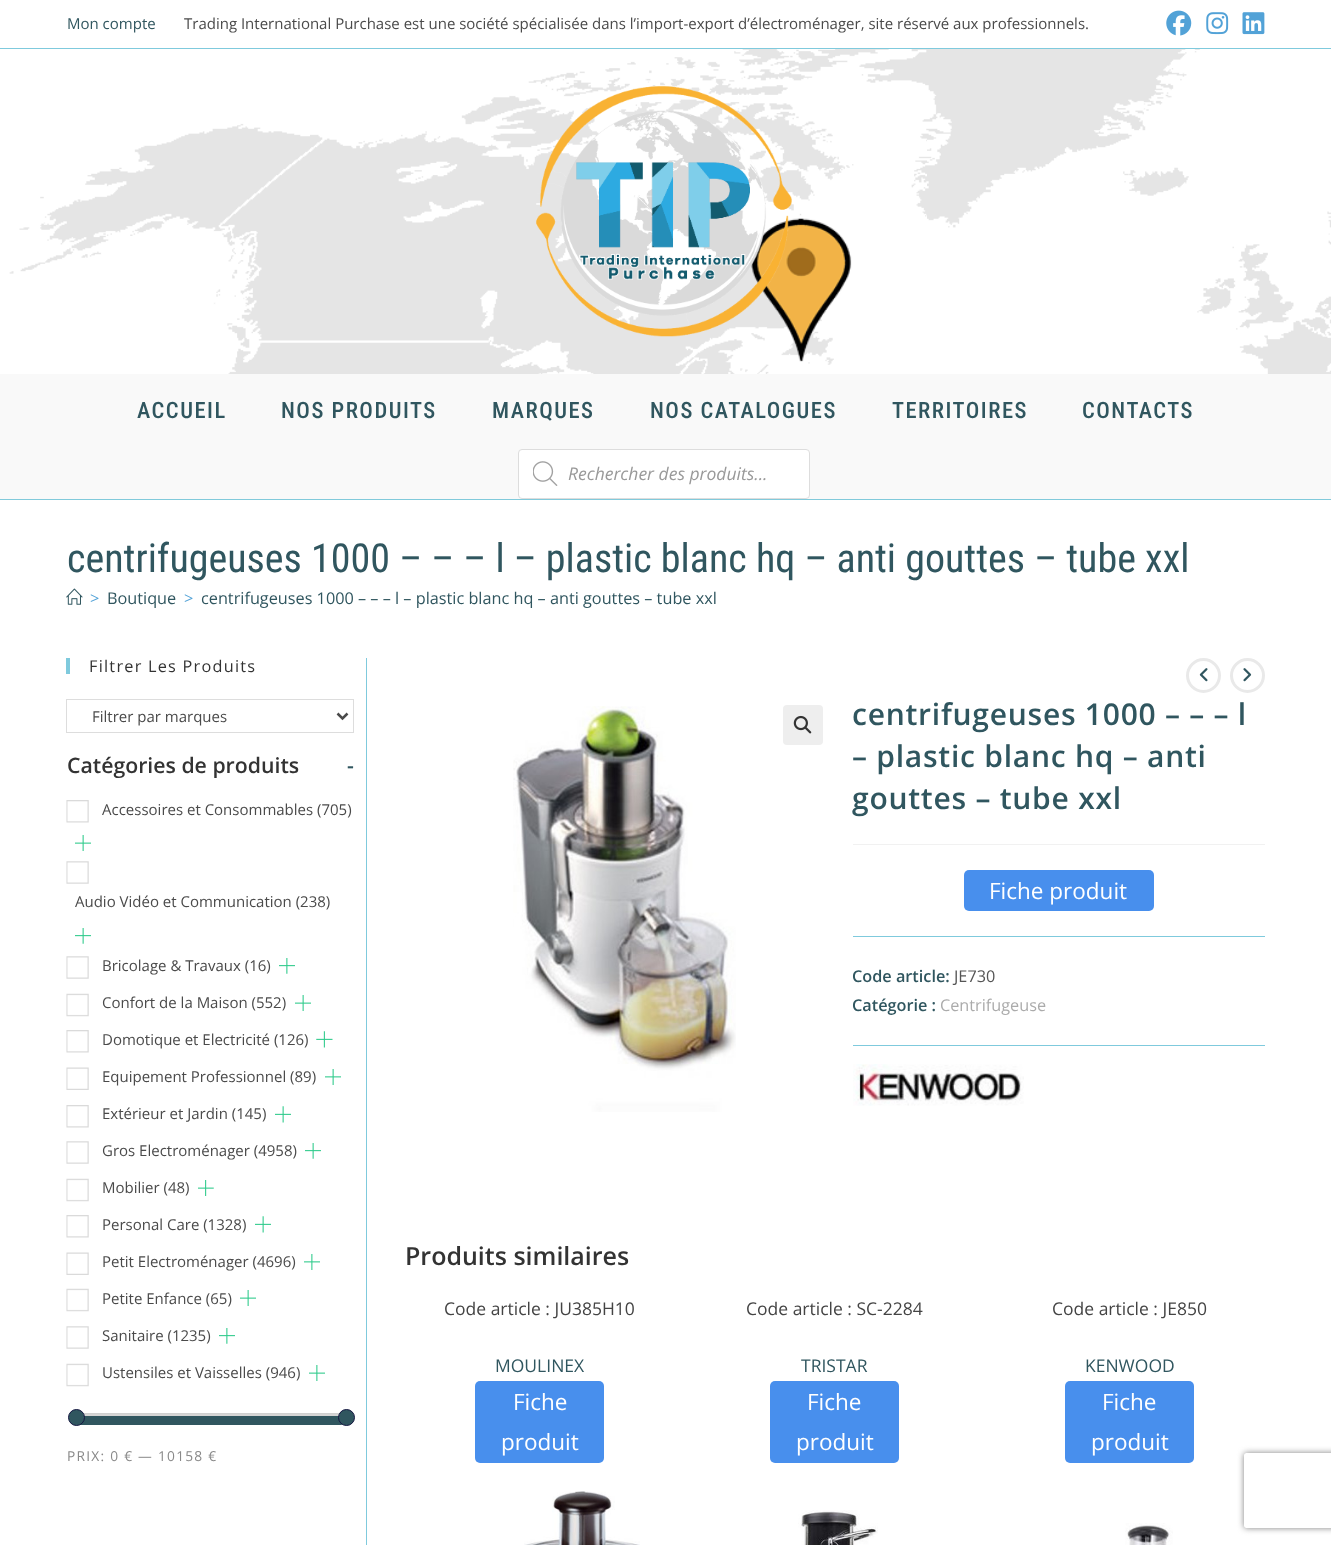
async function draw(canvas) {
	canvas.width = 1331;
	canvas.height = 1545;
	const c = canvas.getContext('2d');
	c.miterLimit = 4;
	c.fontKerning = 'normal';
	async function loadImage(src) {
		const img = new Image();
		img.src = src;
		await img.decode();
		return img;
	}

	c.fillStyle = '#fff';
	c.fillRect(0, 0, 1331, 1545);
	c.fillStyle = '#7fcadd';
	c.fillRect(0, 48, 1331, 1);
	c.font = '15px Open Sans';
	c.fillStyle = '#30565f';
	c.fillText('Mon compte', 67, 29);
	c.fillStyle = '#4a4a4a';
	c.fillText('Trading International Purchase est une société spécialisée dans l’import-export d’électroménager, site réservé aux professionnels.', 184, 29);
	c.drawImage(await loadImage('img1.png'), 1166, 10, 26, 26);
	c.drawImage(await loadImage('img2.png'), 1206, 12, 23, 23);
	c.drawImage(await loadImage('img3.png'), 1242, 12, 23, 23);
	c.fillStyle = '#81cadb';
	c.fillRect(0, 499, 1331, 1);
	c.drawImage(await loadImage('img4.png'), 0, 49, 1331, 325);
	c.drawImage(await loadImage('img5.png'), 536, 86, 256, 251);
	c.fillStyle = '#f9f9f9';
	c.fillRect(0, 374, 1331, 125);
	c.letterSpacing = '1.5px';
	c.font = '500 22.5px Roboto Condensed';
	c.fillStyle = '#30565f';
	for (const [text, x, y] of [
		['ACCUEIL', 137, 418],
		['NOS PRODUITS', 281, 418],
		['MARQUES', 492, 418],
		['NOS CATALOGUES', 650, 418],
		['TERRITOIRES', 892, 418],
		['CONTACTS', 1082, 418],
	]) {
		c.fillText(text, x, y);
	}
	c.fillStyle = '#fff';
	c.beginPath();
	c.roundRect(518.5, 449.5, 291, 49, 3.5);
	c.fill();
	c.strokeStyle = '#ddd';
	c.stroke();
	c.drawImage(await loadImage('img6.png'), 533, 461, 25, 25);
	c.letterSpacing = '0px';
	c.font = 'italic 17.5px Open Sans';
	c.fillStyle = '#999';
	c.fillText('Rechercher des produits...', 568, 480);
	c.font = '40px Roboto Condensed';
	c.fillStyle = '#30565f';
	c.fillText('centrifugeuses 1000 – – – l – plastic blanc hq – anti gouttes – tube xxl', 67, 572);
	c.drawImage(await loadImage('img7.png'), 66, 588, 17, 17);
	c.font = '16.25px Open Sans';
	c.fillStyle = '#52a2d7';
	c.fillText('>', 90, 604);
	c.fillStyle = '#30565f';
	c.fillText('Boutique', 107, 604);
	c.fillStyle = '#52a2d7';
	c.fillText('>', 184, 604);
	c.fillStyle = '#30565f';
	c.fillText('centrifugeuses 1000 – – – l – plastic blanc hq – anti gouttes – tube xxl', 201, 604);
	c.fillStyle = '#7fcadd';
	c.fillRect(66, 658, 4, 16);
	c.letterSpacing = '1.25px';
	c.fillStyle = '#333';
	c.fillText('Filtrer Les Produits', 89, 672);
	c.strokeRect(66.5, 699.5, 287, 33);
	c.beginPath();
	c.moveTo(337.5, 713.5);
	c.lineTo(342.5, 718.5);
	c.lineTo(347.5, 713.5);
	c.strokeStyle = '#4a4a4a';
	c.lineWidth = 2.5;
	c.stroke();
	c.letterSpacing = '0px';
	c.font = '15px Open Sans';
	c.fillStyle = '#4a4a4a';
	c.fillText('Filtrer par marques', 92, 722);
	c.font = '600 21.25px Open Sans';
	c.fillStyle = '#333';
	c.fillText('Catégories de produits', 67, 773);
	c.fillStyle = '#30565f';
	c.fillText('-', 347, 773);
	c.drawImage(await loadImage('img8.png'), 66, 800, 23, 23);
	c.font = '15px Open Sans';
	c.fillStyle = '#4a4a4a';
	c.fillText('Accessoires et Consommables (705)', 102, 815);
	c.drawImage(await loadImage('img9.png'), 75, 835, 16, 16);
	c.drawImage(await loadImage('img10.png'), 66, 861, 23, 23);
	c.fillText('Audio Vidéo et Communication (238)', 75, 907);
	c.drawImage(await loadImage('img11.png'), 75, 928, 16, 16);
	c.drawImage(await loadImage('img10.png'), 66, 956, 23, 23);
	c.fillText('Bricolage & Travaux (16)', 102, 971);
	c.drawImage(await loadImage('img12.png'), 279, 958, 16, 16);
	c.drawImage(await loadImage('img13.png'), 66, 993, 23, 24);
	c.fillText('Confort de la Maison (552)', 102, 1008);
	c.drawImage(await loadImage('img9.png'), 295, 995, 16, 16);
	c.drawImage(await loadImage('img8.png'), 66, 1030, 23, 23);
	c.fillText('Domotique et Electricité (126)', 102, 1045);
	c.drawImage(await loadImage('img14.png'), 316, 1031, 17, 17);
	c.drawImage(await loadImage('img15.png'), 66, 1067, 23, 23);
	c.fillText('Equipement Professionnel (89)', 102, 1082);
	c.drawImage(await loadImage('img16.png'), 325, 1069, 16, 16);
	c.drawImage(await loadImage('img8.png'), 66, 1105, 23, 23);
	c.fillText('Extérieur et Jardin (145)', 102, 1119);
	c.drawImage(await loadImage('img17.png'), 275, 1106, 16, 17);
	c.drawImage(await loadImage('img10.png'), 66, 1141, 23, 23);
	c.fillText('Gros Electroménager (4958)', 102, 1156);
	c.drawImage(await loadImage('img11.png'), 305, 1143, 16, 16);
	c.drawImage(await loadImage('img13.png'), 66, 1178, 23, 24);
	c.fillText('Mobilier (48)', 102, 1193);
	c.drawImage(await loadImage('img18.png'), 198, 1180, 16, 16);
	c.drawImage(await loadImage('img8.png'), 66, 1215, 23, 23);
	c.fillText('Personal Care (1328)', 102, 1230);
	c.drawImage(await loadImage('img17.png'), 255, 1216, 16, 17);
	c.drawImage(await loadImage('img15.png'), 66, 1252, 23, 23);
	c.fillText('Petit Electroménager (4696)', 102, 1267);
	c.drawImage(await loadImage('img19.png'), 304, 1254, 16, 16);
	c.drawImage(await loadImage('img13.png'), 66, 1288, 23, 24);
	c.fillText('Petite Enfance (65)', 102, 1304);
	c.drawImage(await loadImage('img9.png'), 240, 1290, 16, 16);
	c.drawImage(await loadImage('img10.png'), 66, 1326, 23, 23);
	c.fillText('Sanitaire (1235)', 102, 1341);
	c.drawImage(await loadImage('img12.png'), 219, 1328, 16, 16);
	c.drawImage(await loadImage('img13.png'), 66, 1363, 23, 24);
	c.fillText('Ustensiles et Vaisselles (946)', 102, 1378);
	c.drawImage(await loadImage('img20.png'), 309, 1365, 16, 16);
	c.fillStyle = '#d5d5d5';
	c.fillRect(84, 1414, 255, 2);
	c.strokeStyle = '#d0d0d0';
	c.lineWidth = 1;
	c.strokeRect(74.5, 1413.5, 271, 10);
	c.fillStyle = '#30565f';
	c.beginPath();
	c.roundRect(75, 1416, 270, 9, 4.5);
	c.fill();
	c.beginPath();
	c.arc(76.5, 1417.5, 8, 0, 2 * Math.PI);
	c.fill();
	c.strokeStyle = '#141741';
	c.stroke();
	c.beginPath();
	c.arc(346.5, 1417.5, 8, 0, 2 * Math.PI);
	c.fill();
	c.stroke();
	c.letterSpacing = '1.25px';
	c.font = '13.75px Open Sans';
	c.fillStyle = '#898989';
	c.fillText('PRIX: 0 € — 10158 €', 67, 1461);
	c.fillStyle = '#7fcadd';
	c.fillRect(366, 658, 1, 887);
	c.beginPath();
	c.arc(1203.5, 675.5, 16, 0, 2 * Math.PI);
	c.strokeStyle = '#e9e9e9';
	c.lineWidth = 3;
	c.stroke();
	c.drawImage(await loadImage('img21.png'), 1199, 668, 9, 14);
	c.beginPath();
	c.arc(1247.5, 675.5, 16, 0, 2 * Math.PI);
	c.stroke();
	c.drawImage(await loadImage('img22.png'), 1243, 668, 9, 14);
	c.drawImage(await loadImage('img23.png'), 513, 706, 223, 406);
	c.fillStyle = '#eee';
	c.beginPath();
	c.roundRect(783, 705, 40, 40, 4);
	c.fill();
	c.drawImage(await loadImage('img24.png'), 793, 715, 19, 19);
	c.fillStyle = '#f1f1f1';
	c.fillRect(853, 844, 412, 1);
	c.letterSpacing = '0.75px';
	c.font = '600 30px Open Sans';
	c.fillStyle = '#30565f';
	for (const [text, x, y] of [
		['centrifugeuses 1000 – – – l', 852, 725],
		['– plastic blanc hq – anti', 852, 767],
		['gouttes – tube xxl', 852, 809],
	]) {
		c.fillText(text, x, y);
	}
	c.fillStyle = '#488fed';
	c.beginPath();
	c.roundRect(964, 870, 190, 41, 5);
	c.fill();
	c.letterSpacing = '0px';
	c.font = '22.5px Open Sans';
	c.fillStyle = '#fff';
	c.fillText('Fiche produit', 989, 899);
	c.fillStyle = '#7fcadd';
	c.fillRect(853, 936, 412, 1);
	c.fillRect(853, 1045, 412, 1);
	c.font = '600 16.25px Open Sans';
	c.fillStyle = '#30565f';
	c.fillText('Code article:', 852, 982);
	c.font = '16.25px Open Sans';
	c.fillStyle = '#555';
	c.fillText('JE730', 954, 982);
	c.font = '600 16.25px Open Sans';
	c.fillStyle = '#30565f';
	c.fillText('Catégorie :', 852, 1011);
	c.font = '16.25px Open Sans';
	c.fillStyle = '#ababab';
	c.fillText('Centrifugeuse', 940, 1011);
	c.drawImage(await loadImage('img25.png'), 853, 1064, 171, 42);
	c.font = '600 25px Open Sans';
	c.fillStyle = '#333';
	c.fillText('Produits similaires', 405, 1265);
	c.font = '17.5px Open Sans';
	c.fillStyle = '#444';
	c.fillText('Code article : JU385H10', 444, 1315);
	c.fillStyle = '#30565f';
	c.fillText('MOULINEX', 495, 1372);
	c.fillStyle = '#488fed';
	c.beginPath();
	c.roundRect(475, 1381, 129, 82, 5);
	c.fill();
	c.font = '22.5px Open Sans';
	c.fillStyle = '#fff';
	c.fillText('Fiche', 513, 1410);
	c.fillText('produit', 501, 1450);
	c.drawImage(await loadImage('img26.png'), 524, 1491, 116, 54);
	c.font = '17.5px Open Sans';
	c.fillStyle = '#444';
	c.fillText('Code article : SC-2284', 746, 1315);
	c.fillStyle = '#30565f';
	c.fillText('TRISTAR', 801, 1372);
	c.fillStyle = '#488fed';
	c.beginPath();
	c.roundRect(770, 1381, 129, 82, 5);
	c.fill();
	c.font = '22.5px Open Sans';
	c.fillStyle = '#fff';
	c.fillText('Fiche', 807, 1410);
	c.fillText('produit', 796, 1450);
	c.drawImage(await loadImage('img27.png'), 798, 1510, 80, 35);
	c.font = '17.5px Open Sans';
	c.fillStyle = '#444';
	c.fillText('Code article : JE850', 1052, 1315);
	c.fillStyle = '#30565f';
	c.fillText('KENWOOD', 1085, 1372);
	c.fillStyle = '#488fed';
	c.beginPath();
	c.roundRect(1065, 1381, 129, 82, 5);
	c.fill();
	c.font = '22.5px Open Sans';
	c.fillStyle = '#fff';
	c.fillText('Fiche', 1102, 1410);
	c.fillText('produit', 1091, 1450);
	c.drawImage(await loadImage('img28.png'), 1125, 1523, 48, 22);
	c.save();
	c.beginPath();
	c.moveTo(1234, 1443);
	c.lineTo(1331, 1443);
	c.lineTo(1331, 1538);
	c.lineTo(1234, 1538);
	c.closePath();
	c.moveTo(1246.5, 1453);
	c.lineTo(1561.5, 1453);
	c.bezierCurveTo(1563, 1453, 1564, 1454, 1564, 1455.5);
	c.lineTo(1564, 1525.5);
	c.bezierCurveTo(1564, 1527, 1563, 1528, 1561.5, 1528);
	c.lineTo(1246.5, 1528);
	c.bezierCurveTo(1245, 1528, 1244, 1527, 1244, 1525.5);
	c.lineTo(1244, 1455.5);
	c.bezierCurveTo(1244, 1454, 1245, 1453, 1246.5, 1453);
	c.closePath();
	c.clip('evenodd');
	c.fillStyle = '#808080';
	c.filter = 'blur(3px)';
	c.beginPath();
	c.roundRect(1244, 1453, 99, 75, 2.5);
	c.fill();
	c.filter = 'none';
	c.restore();
}

draw(document.querySelector('canvas'));
